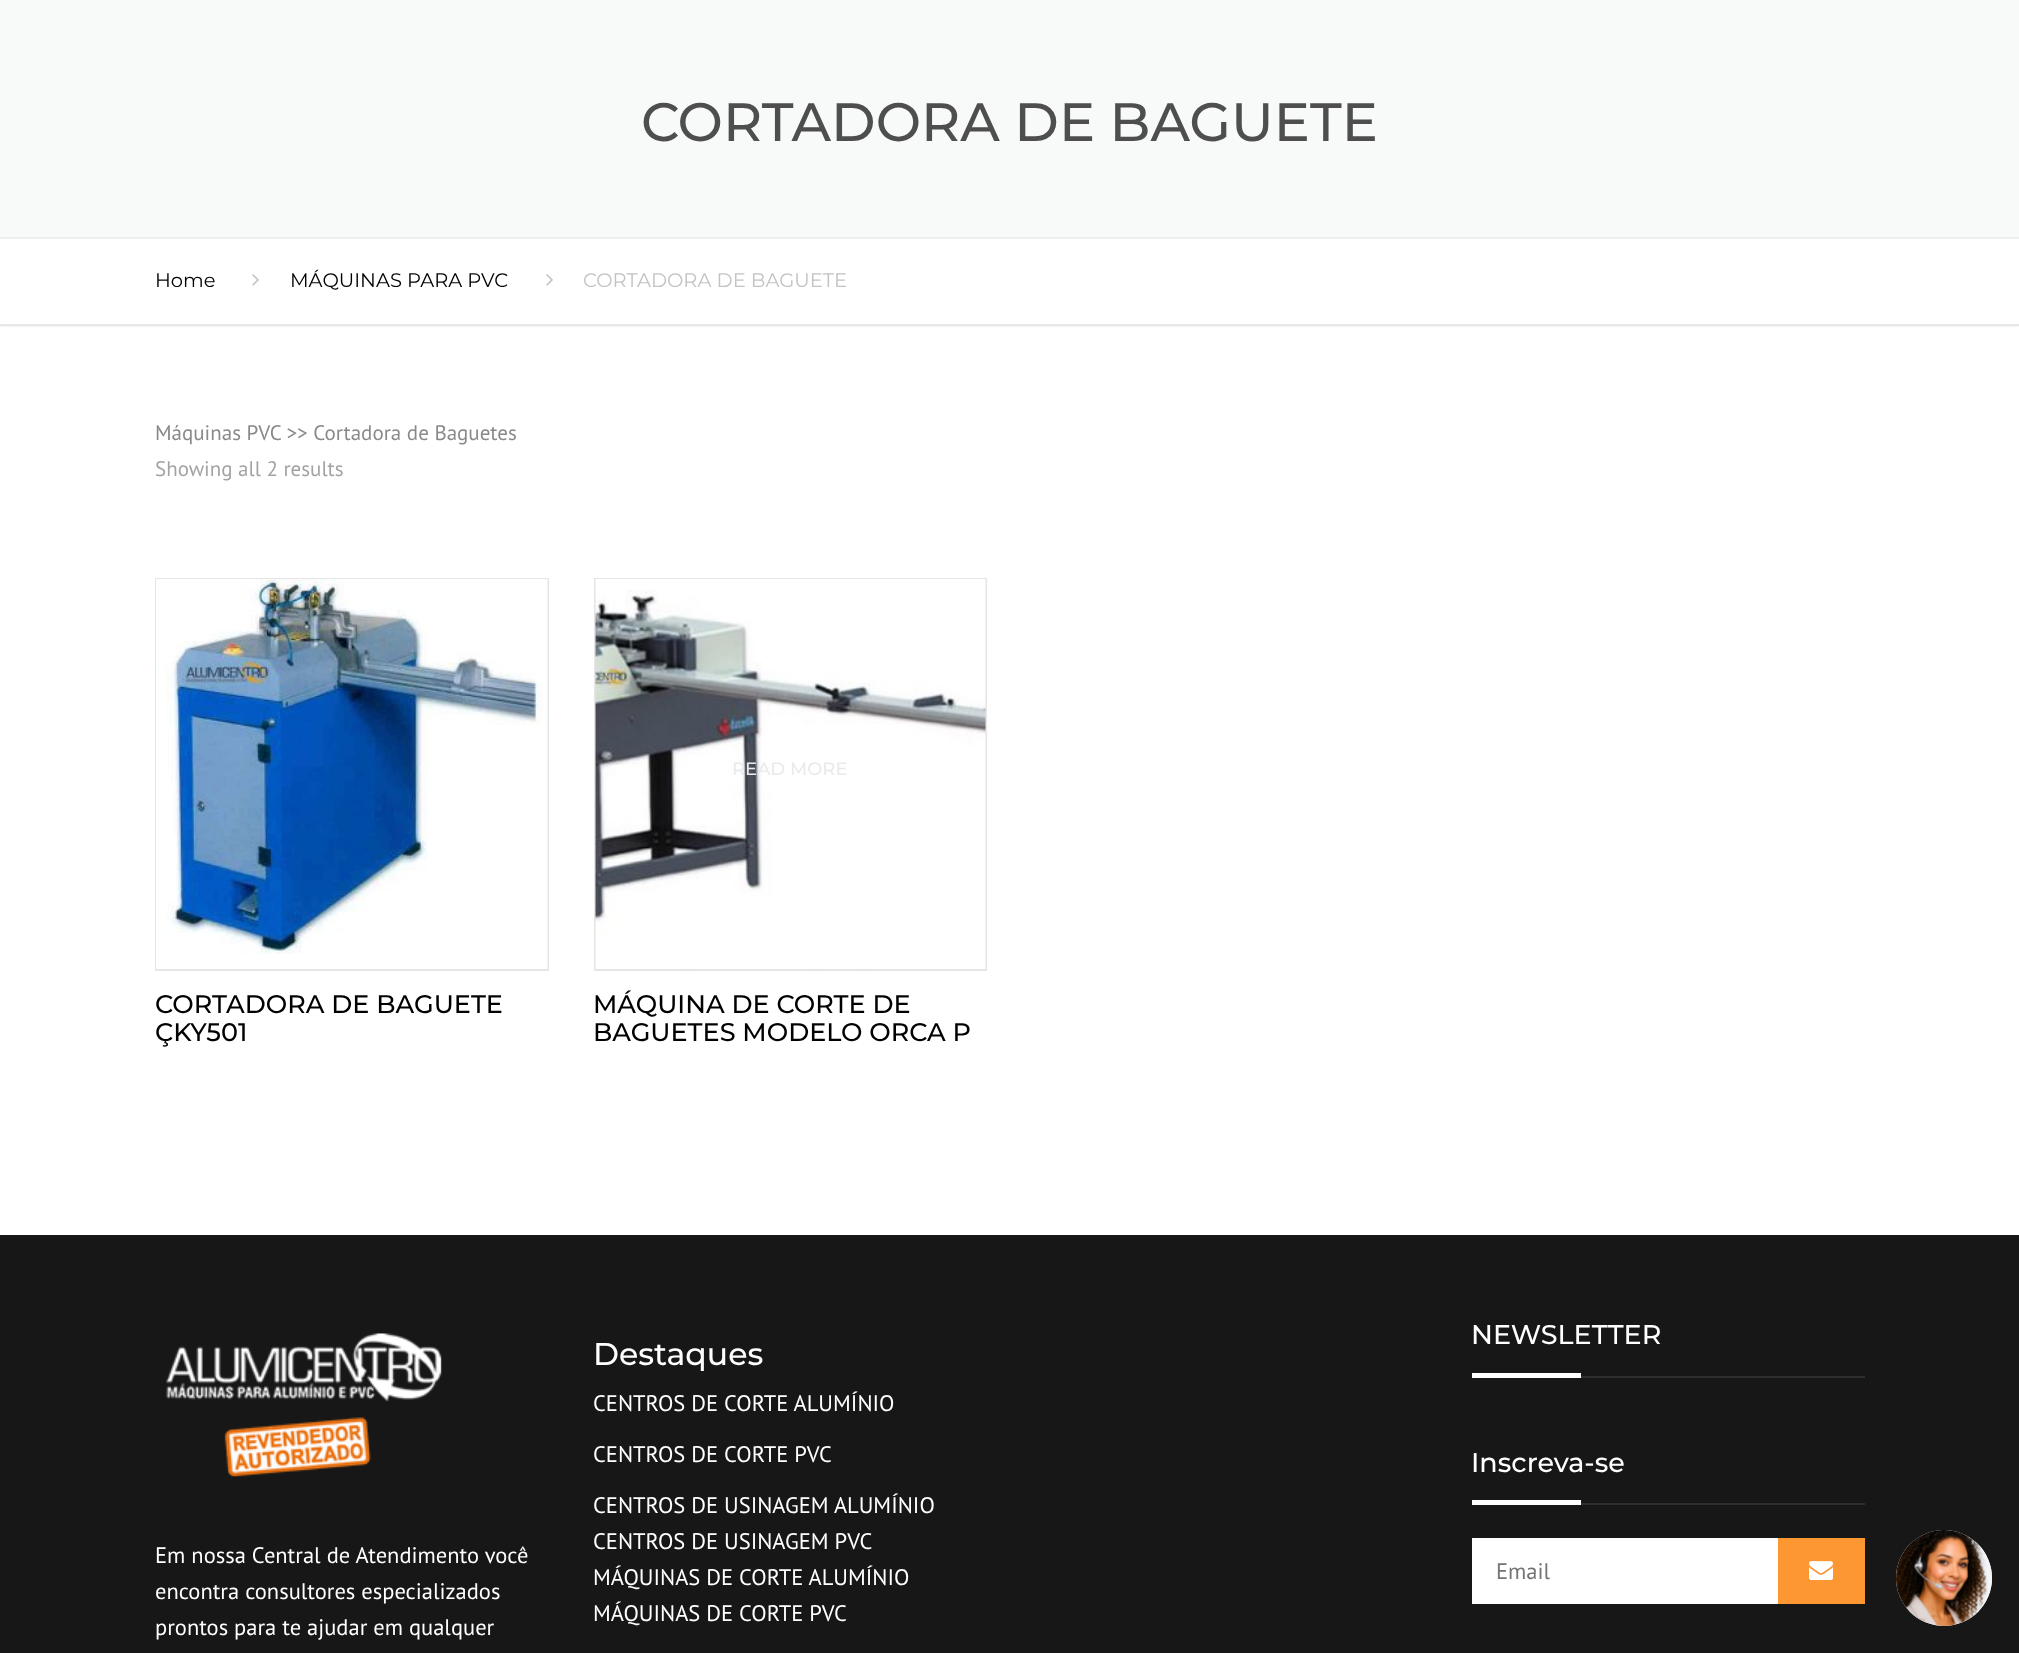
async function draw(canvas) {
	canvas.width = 2019;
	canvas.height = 1653;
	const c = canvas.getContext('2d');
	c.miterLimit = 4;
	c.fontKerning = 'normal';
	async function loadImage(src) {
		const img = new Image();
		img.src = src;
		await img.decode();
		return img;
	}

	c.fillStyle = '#fff';
	c.fillRect(0, 0, 2019, 1653);
	c.save();
	c.beginPath();
	c.rect(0, 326, 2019, 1);
	c.clip();
	c.fillStyle = '#00000024';
	c.filter = 'blur(1px)';
	c.beginPath();
	c.rect(0, 239, 2019, 87);
	c.fill();
	c.filter = 'none';
	c.restore();
	c.fillStyle = '#f8f9f9';
	c.fillRect(0, 0, 2019, 237);
	c.fillStyle = '#eee';
	c.fillRect(0, 237, 2019, 2);
	c.font = '500 54px Montserrat';
	c.fillStyle = '#4e4e4e';
	c.fillText('CORTADORA DE BAGUETE', 641, 141);
	c.fillStyle = '#e7e7e7';
	c.fillRect(0, 324, 2019, 2);
	c.font = '19.5px Montserrat';
	c.fillStyle = '#000';
	c.fillText('Home', 155, 287);
	c.drawImage(await loadImage('img1.png'), 252, 274, 7, 12);
	c.fillText('MÁQUINAS PARA PVC', 290, 287);
	c.drawImage(await loadImage('img1.png'), 546, 274, 7, 12);
	c.fillStyle = '#c3c3c3';
	c.fillText('CORTADORA DE BAGUETE', 583, 287);
	c.font = '21px PT Sans';
	c.fillStyle = '#898989';
	c.fillText('Máquinas PVC >> Cortadora de Baguetes', 155, 440);
	c.fillStyle = '#a3a3a3';
	c.fillText('Showing all 2 results', 155, 476);
	c.strokeStyle = '#e5e5e5';
	c.lineWidth = 2;
	c.strokeRect(156, 579, 392, 391);
	c.drawImage(await loadImage('img2.png'), 156, 579, 392, 390);
	c.font = '500 25.5px Montserrat';
	c.fillStyle = '#000';
	c.fillText('CORTADORA DE BAGUETE', 155, 1013);
	c.fillText('ÇKY501', 155, 1041);
	c.strokeRect(595, 579, 391, 391);
	c.drawImage(await loadImage('img3.png'), 595, 579, 391, 390);
	c.font = '500 18px Montserrat';
	c.fillStyle = '#e9eaeb';
	c.fillText('READ MORE', 732, 775);
	c.font = '500 25.5px Montserrat';
	c.fillStyle = '#000';
	c.fillText('MÁQUINA DE CORTE DE', 593, 1013);
	c.fillText('BAGUETES MODELO ORCA P', 593, 1041);
	c.fillStyle = '#171717';
	c.fillRect(0, 1235, 2019, 418);
	c.drawImage(await loadImage('img4.png'), 166, 1333, 276, 145);
	c.font = '22.5px PT Sans';
	c.fillStyle = '#fff';
	for (const [text, x, y] of [
		['Em nossa Central de Atendimento você', 155, 1563],
		['encontra consultores especializados', 155, 1599],
		['prontos para te ajudar em qualquer', 155, 1635],
	]) {
		c.fillText(text, x, y);
	}
	c.font = '500 31.5px Montserrat';
	c.fillText('Destaques', 593, 1365);
	c.font = '22.5px PT Sans';
	for (const [text, x, y] of [
		['CENTROS DE CORTE ALUMÍNIO', 593, 1411],
		['CENTROS DE CORTE PVC', 593, 1462],
		['CENTROS DE USINAGEM ALUMÍNIO', 593, 1513],
		['CENTROS DE USINAGEM PVC', 593, 1549],
		['MÁQUINAS DE CORTE ALUMÍNIO', 593, 1585],
		['MÁQUINAS DE CORTE PVC', 593, 1621],
	]) {
		c.fillText(text, x, y);
	}
	c.fillStyle = '#2e2e2e';
	c.fillRect(1581, 1376, 284, 2);
	c.font = '500 27px Montserrat';
	c.fillStyle = '#fff';
	c.fillText('NEWSLETTER', 1471, 1344);
	c.fillRect(1472, 1373, 109, 5);
	c.fillStyle = '#2e2e2e';
	c.fillRect(1581, 1503, 284, 2);
	c.fillStyle = '#fff';
	c.fillText('Inscreva-se', 1471, 1472);
	c.fillRect(1472, 1500, 109, 5);
	c.fillRect(1472, 1538, 306, 66);
	c.font = '22.5px PT Sans';
	c.fillStyle = '#757575';
	c.fillText('Email', 1496, 1579);
	c.fillStyle = '#fc9732';
	c.fillRect(1778, 1538, 87, 66);
	c.drawImage(await loadImage('img5.png'), 1809, 1561, 24, 19);
	c.fillStyle = '#fff';
	c.beginPath();
	c.arc(1944, 1578, 48, 0, 2 * Math.PI);
	c.fill();
	c.drawImage(await loadImage('img6.png'), 1896, 1530, 96, 96);
}

draw(document.querySelector('canvas'));
